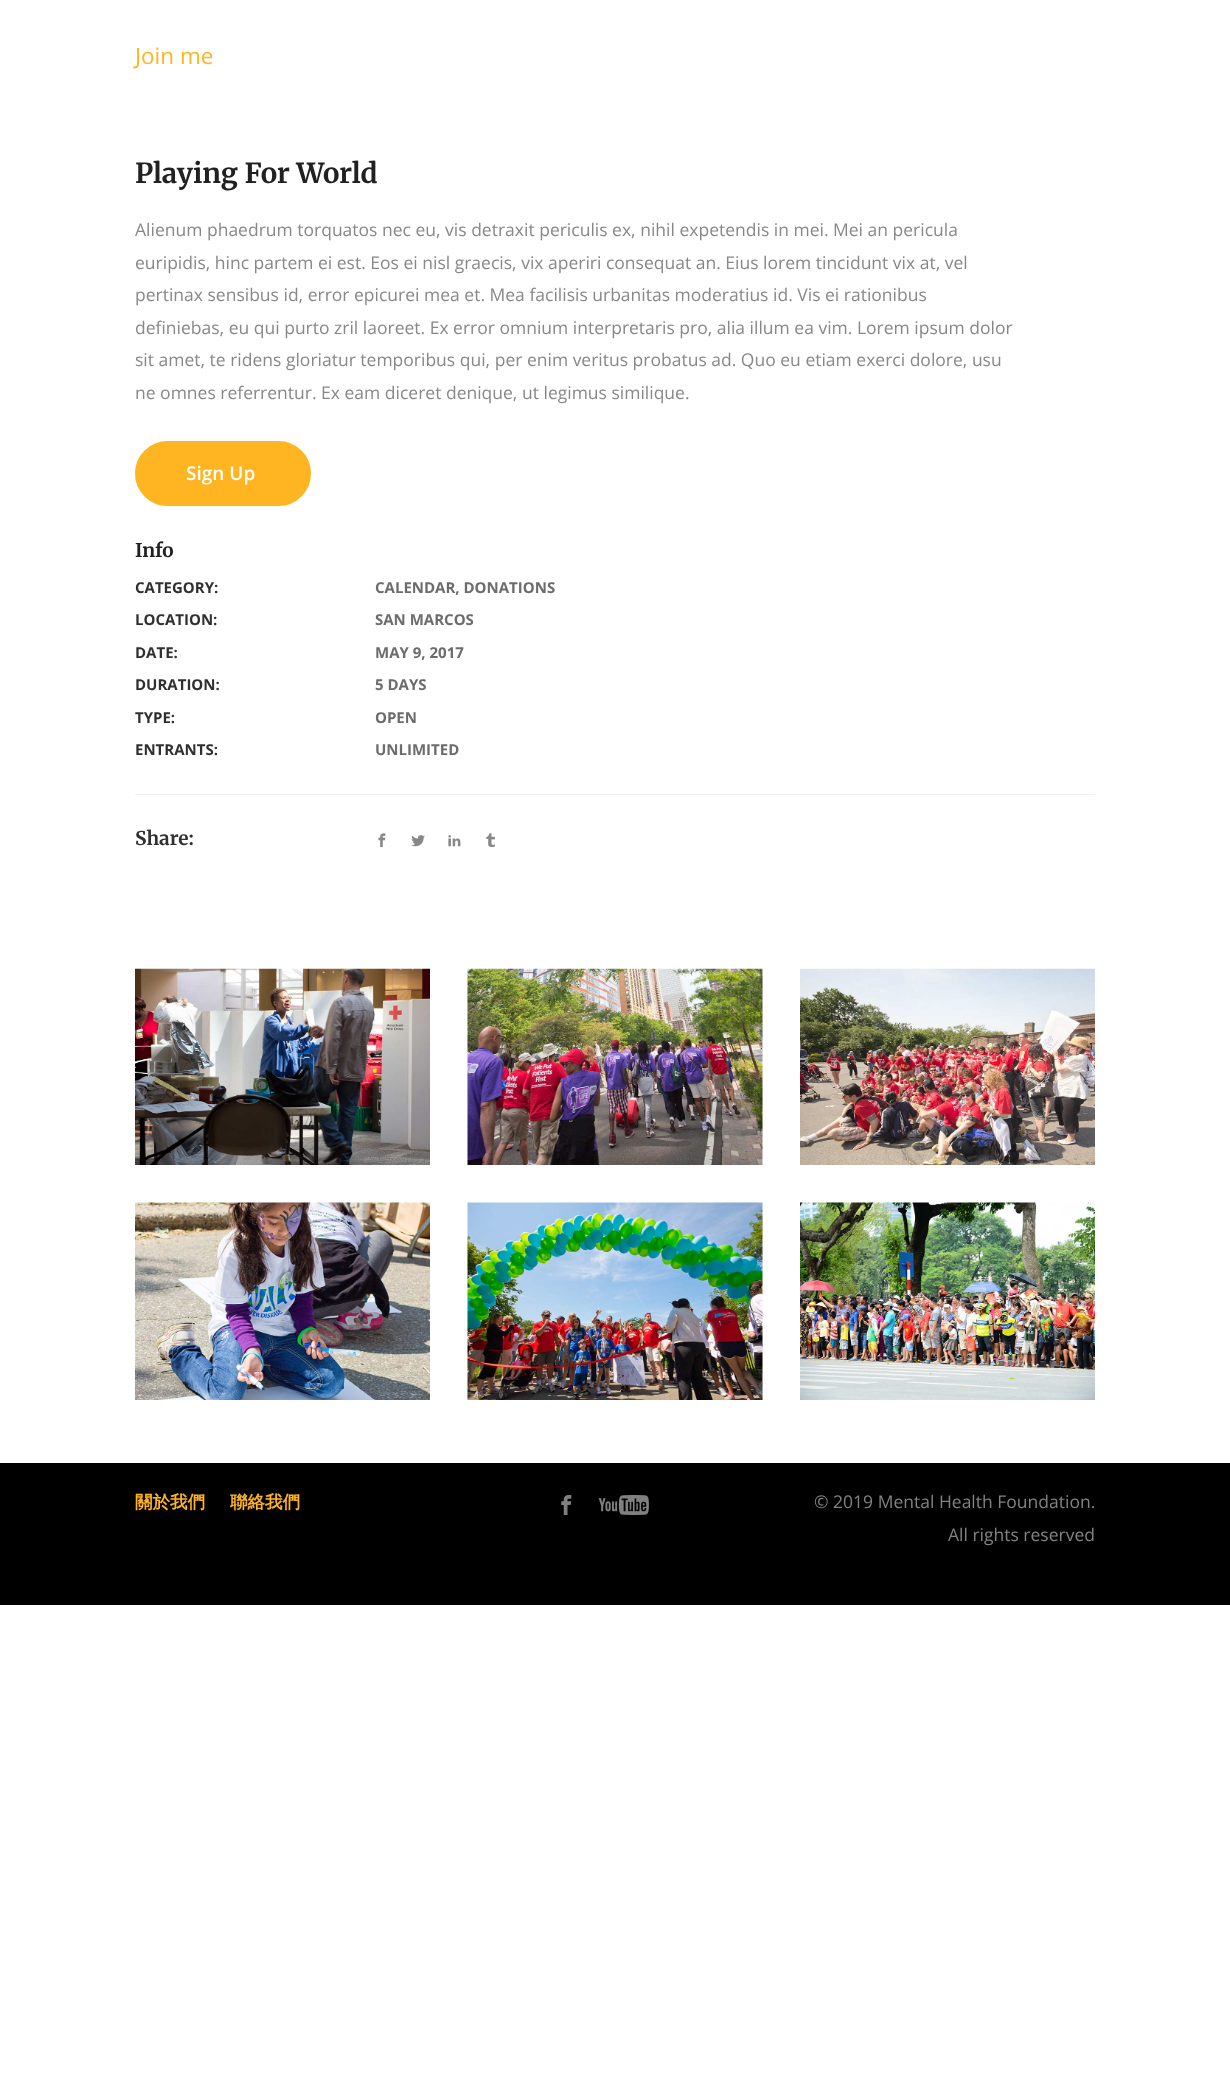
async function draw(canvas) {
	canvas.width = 1230;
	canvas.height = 2078;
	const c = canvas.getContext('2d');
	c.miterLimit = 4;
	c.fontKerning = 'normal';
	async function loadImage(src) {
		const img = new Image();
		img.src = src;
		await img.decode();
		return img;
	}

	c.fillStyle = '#fff';
	c.fillRect(0, 0, 1230, 2078);
	c.font = '22.5px Open Sans';
	c.fillStyle = '#ffb422';
	c.fillText('Join me', 135, 64);
	c.font = 'bold 27.5px Merriweather';
	c.fillStyle = '#212121';
	c.fillText('Playing For World', 135, 183);
	c.font = '17.5px Open Sans';
	c.fillStyle = '#888';
	for (const [text, x, y] of [
		['Alienum phaedrum torquatos nec eu, vis detraxit periculis ex, nihil expetendis in mei. Mei an pericula', 135, 236],
		['euripidis, hinc partem ei est. Eos ei nisl graecis, vix aperiri consequat an. Eius lorem tincidunt vix at, vel', 135, 269],
		['pertinax sensibus id, error epicurei mea et. Mea facilisis urbanitas moderatius id. Vis ei rationibus', 135, 301],
		['definiebas, eu qui purto zril laoreet. Ex error omnium interpretaris pro, alia illum ea vim. Lorem ipsum dolor', 135, 334],
		['sit amet, te ridens gloriatur temporibus qui, per enim veritus probatus ad. Quo eu etiam exerci dolore, usu', 135, 366],
		['ne omnes referrentur. Ex eam diceret denique, ut legimus similique.', 135, 399],
	]) {
		c.fillText(text, x, y);
	}
	c.fillStyle = '#ffb422';
	c.beginPath();
	c.roundRect(136.5, 442.5, 173, 62, 31);
	c.fill();
	c.strokeStyle = '#ffb422';
	c.lineWidth = 3;
	c.stroke();
	c.font = '600 19px Open Sans';
	c.fillStyle = '#fff';
	c.fillText('Sign Up', 186, 480);
	c.font = 'bold 19px Merriweather';
	c.fillStyle = '#212121';
	c.fillText('Info', 135, 557);
	c.font = 'bold 15px Open Sans';
	c.fillStyle = '#303030';
	c.fillText('CATEGORY:', 135, 593);
	c.fillStyle = '#6c6c6c';
	c.fillText('CALENDAR, DONATIONS', 375, 593);
	c.fillStyle = '#303030';
	c.fillText('LOCATION:', 135, 625);
	c.fillStyle = '#6c6c6c';
	c.fillText('SAN MARCOS', 375, 625);
	c.fillStyle = '#303030';
	c.fillText('DATE:', 135, 658);
	c.fillStyle = '#6c6c6c';
	c.fillText('MAY 9, 2017', 375, 658);
	c.fillStyle = '#303030';
	c.fillText('DURATION:', 135, 690);
	c.fillStyle = '#6c6c6c';
	c.fillText('5 DAYS', 375, 690);
	c.fillStyle = '#303030';
	c.fillText('TYPE:', 135, 723);
	c.fillStyle = '#6c6c6c';
	c.fillText('OPEN', 375, 723);
	c.fillStyle = '#303030';
	c.fillText('ENTRANTS:', 135, 755);
	c.fillStyle = '#6c6c6c';
	c.fillText('UNLIMITED', 375, 755);
	c.fillStyle = '#f1f1f1';
	c.fillRect(135, 794, 960, 1);
	c.font = 'bold 19px Merriweather';
	c.fillStyle = '#303030';
	c.fillText('Share:', 135, 845);
	c.drawImage(await loadImage('img1.png'), 378, 833, 8, 15);
	c.drawImage(await loadImage('img2.png'), 411, 835, 14, 12);
	c.drawImage(await loadImage('img3.png'), 448, 835, 13, 12);
	c.drawImage(await loadImage('img4.png'), 486, 833, 9, 15);
	c.drawImage(await loadImage('img5.png'), 135, 968, 295, 197);
	c.drawImage(await loadImage('img6.png'), 467, 968, 296, 197);
	c.drawImage(await loadImage('img7.png'), 800, 968, 295, 197);
	c.drawImage(await loadImage('img8.png'), 135, 1202, 295, 198);
	c.drawImage(await loadImage('img9.png'), 467, 1202, 296, 198);
	c.drawImage(await loadImage('img10.png'), 800, 1202, 295, 198);
	c.fillStyle = '#000';
	c.fillRect(0, 1463, 1230, 142);
	c.font = 'bold 17.5px WenQuanYi Zen Hei';
	c.fillStyle = '#ffb422';
	c.fillText('關於我們', 135, 1508);
	c.fillText('聯絡我們', 230, 1508);
	c.drawImage(await loadImage('img11.png'), 561, 1495, 11, 20);
	c.drawImage(await loadImage('img12.png'), 598, 1495, 51, 20);
	c.font = '17.5px Open Sans';
	c.fillStyle = '#828282';
	c.fillText('© 2019 Mental Health Foundation.', 814, 1508);
	c.fillText('All rights reserved', 948, 1541);
}

draw(document.querySelector('canvas'));
